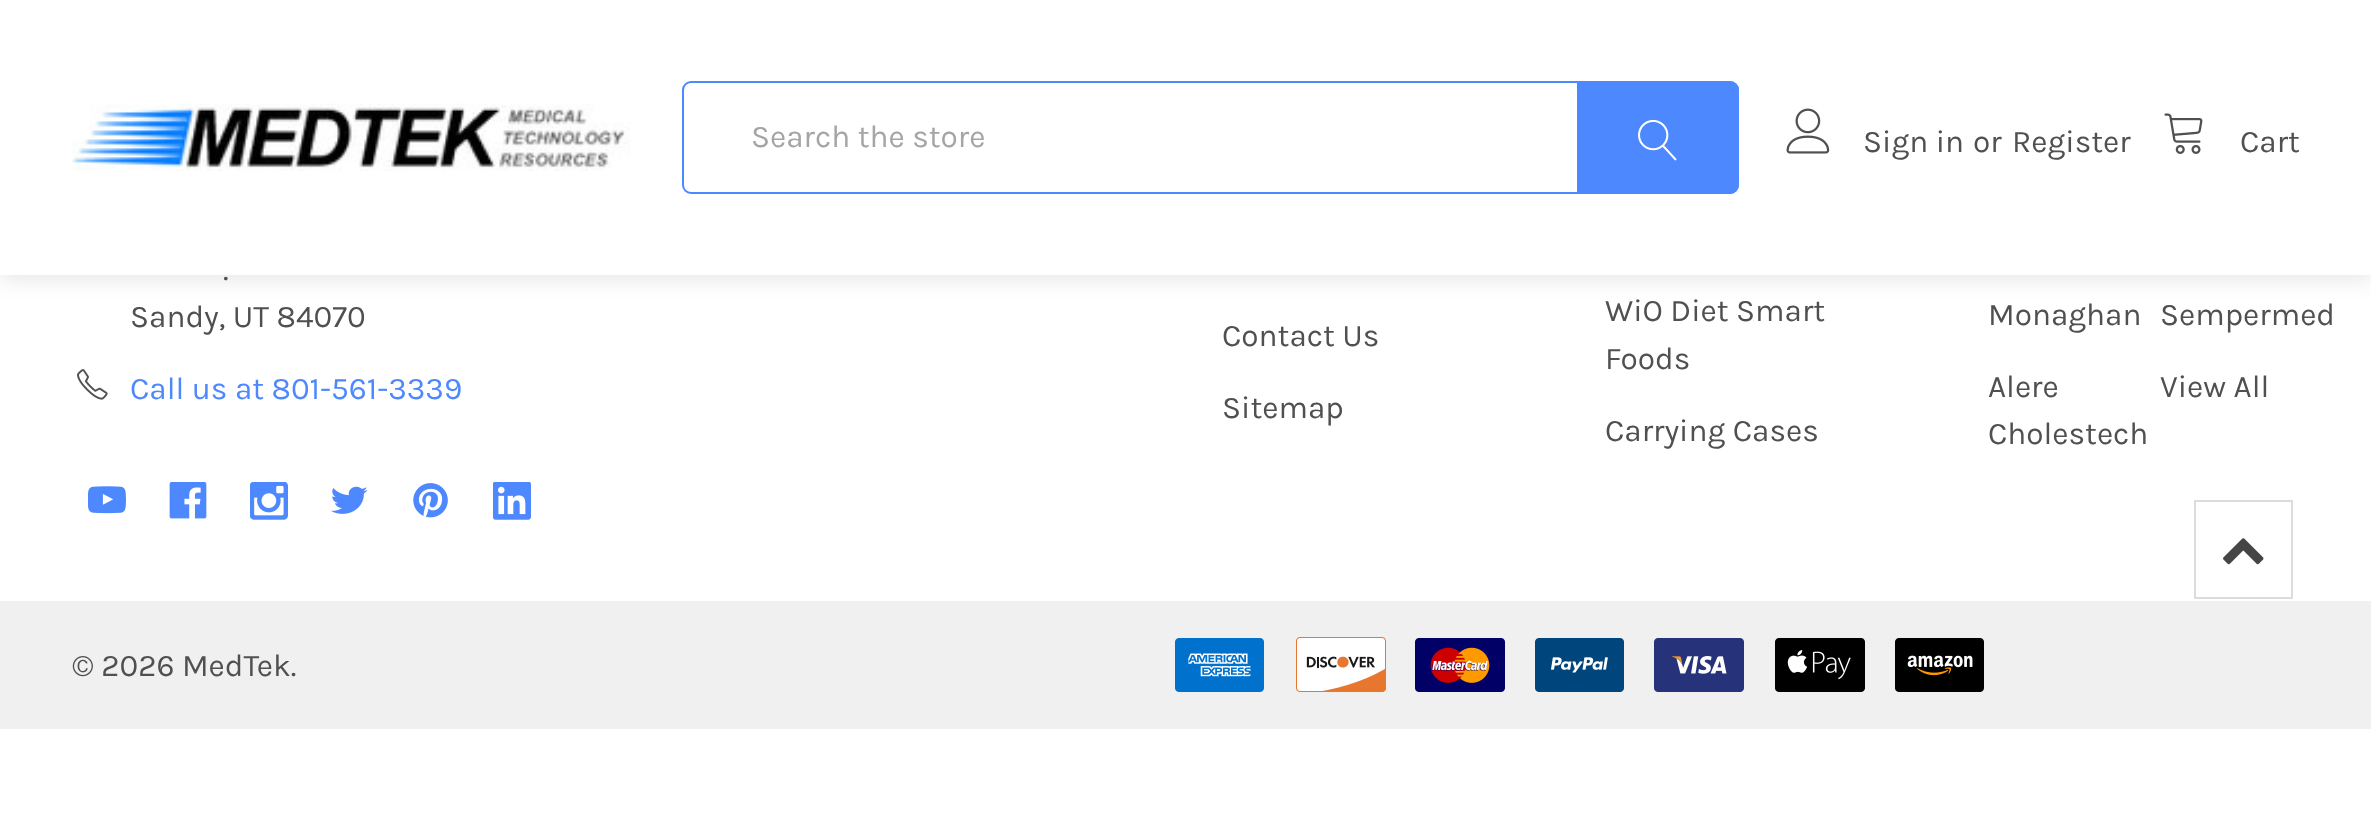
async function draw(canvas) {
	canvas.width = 2371;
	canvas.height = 822;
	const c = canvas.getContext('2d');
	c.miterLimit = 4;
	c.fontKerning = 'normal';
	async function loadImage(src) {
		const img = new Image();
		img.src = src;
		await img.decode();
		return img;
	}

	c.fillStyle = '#fff';
	c.fillRect(0, 0, 2371, 822);
	c.fillStyle = '#0000001a';
	c.filter = 'blur(11px)';
	c.beginPath();
	c.rect(0, 5, 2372, 274);
	c.fill();
	c.filter = 'none';
	c.fillStyle = '#fff';
	c.fillRect(0, 0, 2371, 275);
	c.drawImage(await loadImage('img1.png'), 71, 103, 559, 68);
	c.beginPath();
	c.roundRect(683, 82, 1055, 111, 8);
	c.strokeStyle = '#4d88ff';
	c.lineWidth = 2;
	c.stroke();
	c.font = '31.5px Karla';
	c.fillStyle = '#a5a5a5';
	c.fillText('Search the store', 751, 147);
	c.fillStyle = '#4d88ff';
	c.beginPath();
	c.roundRect(1577, 81, 162, 113, [0, 9, 9, 0]);
	c.fill();
	c.drawImage(await loadImage('img2.png'), 1638, 119, 39, 42);
	c.drawImage(await loadImage('img3.png'), 1786, 108, 44, 46);
	c.fillStyle = '#505050';
	for (const [text, x, y] of [
		['Sign in', 1863, 152],
		['or', 1973, 152],
		['Register', 2012, 152],
	]) {
		c.fillText(text, x, y);
	}
	c.drawImage(await loadImage('img4.png'), 2164, 113, 39, 41);
	for (const [text, x, y] of [
		['Cart', 2240, 152],
		['.', 223, 280],
		['Sandy, UT 84070', 130, 327],
	]) {
		c.fillText(text, x, y);
	}
	c.drawImage(await loadImage('img5.png'), 77, 369, 31, 31);
	c.fillStyle = '#4d88ff';
	c.fillText('Call us at 801-561-3339', 130, 399);
	c.drawImage(await loadImage('img6.png'), 88, 486, 38, 28);
	c.drawImage(await loadImage('img7.png'), 169, 482, 38, 37);
	c.drawImage(await loadImage('img8.png'), 250, 482, 38, 38);
	c.drawImage(await loadImage('img9.png'), 331, 486, 37, 28);
	c.drawImage(await loadImage('img10.png'), 413, 483, 35, 35);
	c.drawImage(await loadImage('img11.png'), 493, 482, 38, 38);
	c.fillStyle = '#505050';
	for (const [text, x, y] of [
		['Contact Us', 1222, 346],
		['Sitemap', 1222, 418],
		['WiO Diet Smart', 1605, 321],
		['Foods', 1605, 369],
		['Carrying Cases', 1605, 441],
		['Monaghan', 1988, 325],
		['Sempermed', 2160, 325],
		['Alere', 1988, 397],
		['Cholestech', 1988, 444],
		['View All', 2160, 397],
	]) {
		c.fillText(text, x, y);
	}
	c.fillStyle = '#f0f0f0';
	c.fillRect(0, 601, 2371, 128);
	c.fillStyle = '#505050';
	c.fillText('© 2026 MedTek.', 72, 676);
	c.drawImage(await loadImage('img12.png'), 1175, 638, 89, 54);
	c.drawImage(await loadImage('img13.png'), 1296, 637, 90, 55);
	c.drawImage(await loadImage('img14.png'), 1415, 638, 90, 54);
	c.drawImage(await loadImage('img15.png'), 1535, 638, 89, 54);
	c.drawImage(await loadImage('img16.png'), 1654, 638, 90, 54);
	c.drawImage(await loadImage('img17.png'), 1775, 638, 90, 54);
	c.drawImage(await loadImage('img18.png'), 1895, 638, 89, 54);
	c.strokeStyle = '#dcdcdc';
	c.strokeRect(2195, 501, 97, 97);
	c.drawImage(await loadImage('img19.png'), 2223, 538, 41, 27);
}

draw(document.querySelector('canvas'));
